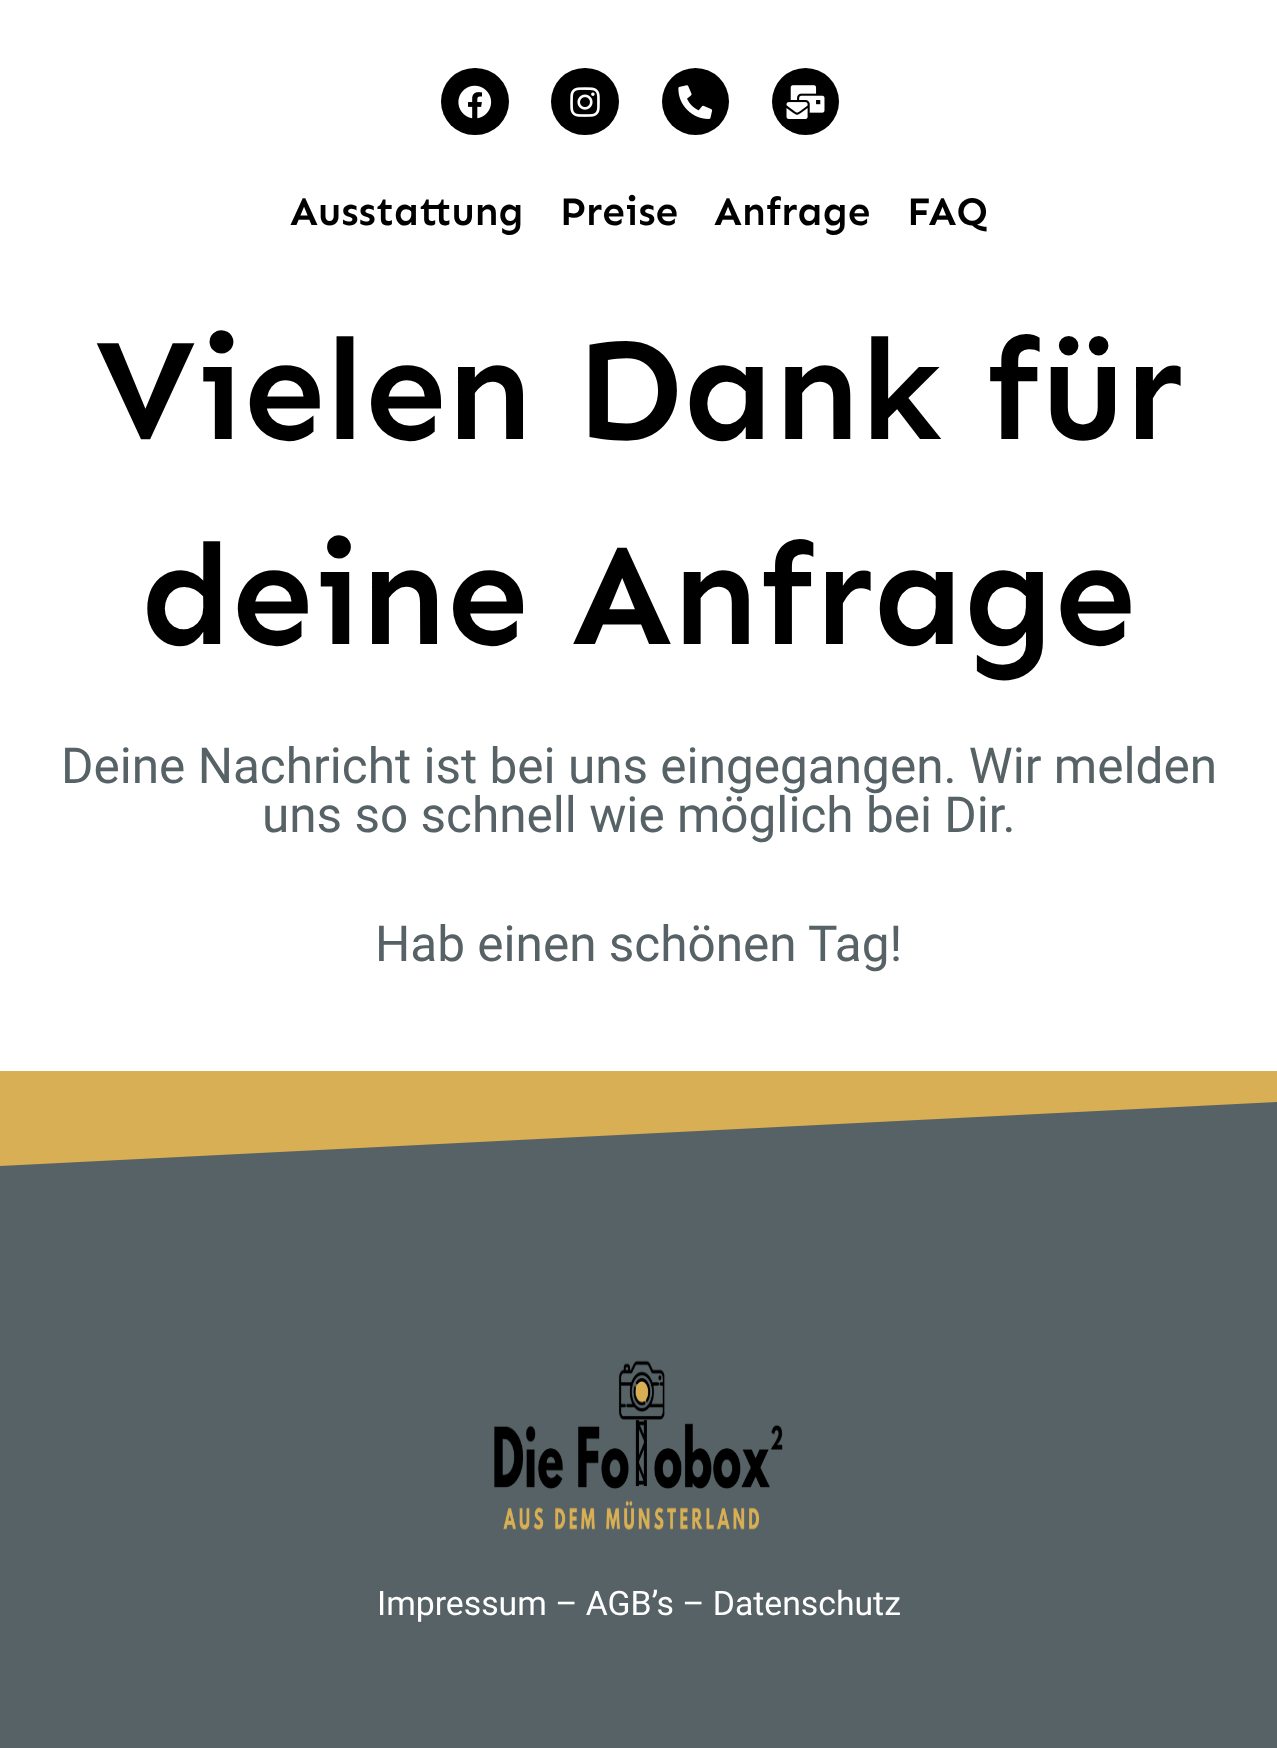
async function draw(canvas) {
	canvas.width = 1277;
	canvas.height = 1748;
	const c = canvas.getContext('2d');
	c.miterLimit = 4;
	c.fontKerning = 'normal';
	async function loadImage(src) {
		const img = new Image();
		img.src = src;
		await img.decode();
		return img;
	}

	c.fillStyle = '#fff';
	c.fillRect(0, 0, 1277, 1748);
	c.fillStyle = '#000';
	c.beginPath();
	c.roundRect(441, 68, 68, 67, 33.5);
	c.fill();
	c.drawImage(await loadImage('img1.png'), 458, 85, 34, 34);
	c.beginPath();
	c.roundRect(551, 68, 68, 67, 33.5);
	c.fill();
	c.drawImage(await loadImage('img2.png'), 570, 87, 30, 30);
	c.beginPath();
	c.arc(695.5, 101.5, 33.5, 0, 2 * Math.PI);
	c.fill();
	c.drawImage(await loadImage('img3.png'), 678, 85, 35, 34);
	c.beginPath();
	c.arc(805.5, 101.5, 33.5, 0, 2 * Math.PI);
	c.fill();
	c.drawImage(await loadImage('img4.png'), 786, 85, 39, 34);
	c.font = '600 40.5px Sen';
	for (const [text, x, y] of [
		['Ausstattung', 290, 225],
		['Preise', 560, 225],
		['Anfrage', 714, 225],
		['FAQ', 907, 225],
	]) {
		c.fillText(text, x, y);
	}
	c.font = '600 146.25px Sen';
	c.fillText('Vielen Dank für', 95, 439);
	c.fillText('deine Anfrage', 141, 644);
	c.font = '49.5px Roboto';
	c.fillStyle = '#566266';
	for (const [text, x, y] of [
		['Deine Nachricht ist bei uns eingegangen. Wir melden', 61, 783],
		['uns so schnell wie möglich bei Dir.', 262, 832],
		['Hab einen schönen Tag!', 375, 961],
	]) {
		c.fillText(text, x, y);
	}
	c.fillRect(0, 1102, 1277, 646);
	c.fillStyle = '#d8af54';
	c.fillRect(0, 1071, 1277, 29);
	c.save();
	c.beginPath();
	c.rect(0, 1100, 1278, 66);
	c.clip();
	c.beginPath();
	c.moveTo(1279, 1102);
	c.lineTo(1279, 1098);
	c.lineTo(-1, 1098);
	c.lineTo(-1, 1166);
	c.closePath();
	c.fill();
	c.restore();
	c.drawImage(await loadImage('img5.png'), 494, 1360, 289, 170);
	c.font = '33.75px Roboto';
	c.fillStyle = '#fff';
	c.fillText('Impressum – AGB’s – Datenschutz', 377, 1615);
}

draw(document.querySelector('canvas'));
